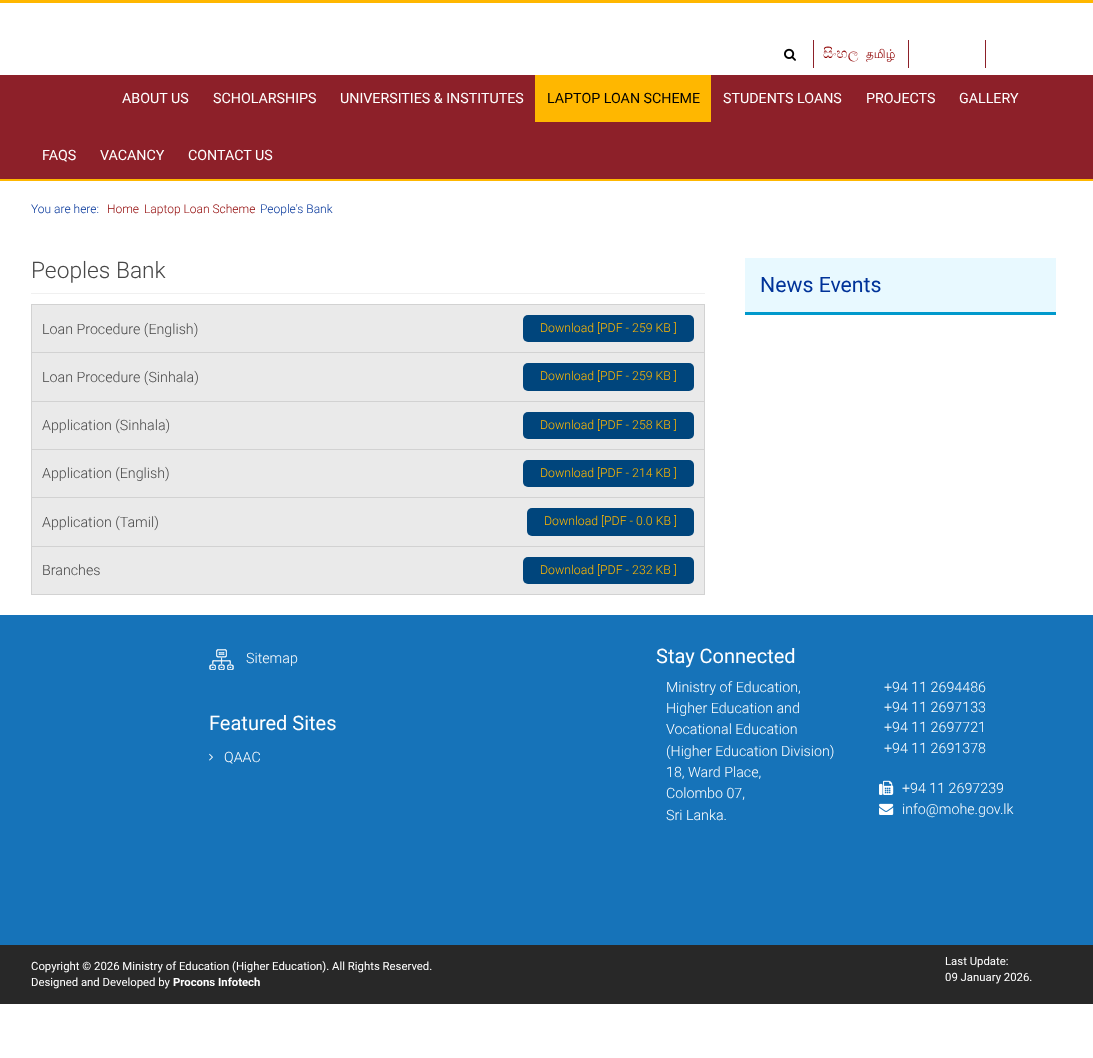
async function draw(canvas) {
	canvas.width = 1093;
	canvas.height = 1058;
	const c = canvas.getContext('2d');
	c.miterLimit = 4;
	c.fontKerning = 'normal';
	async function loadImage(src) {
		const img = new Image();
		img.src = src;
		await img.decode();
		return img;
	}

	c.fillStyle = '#fff';
	c.fillRect(0, 0, 1093, 1058);
	c.fillStyle = '#ffb700';
	c.fillRect(0, 0, 1093, 3);
	c.drawImage(await loadImage('img1.png'), 784, 48, 12, 13);
	c.fillStyle = '#8d2029';
	c.fillRect(813, 40, 1, 28);
	c.fillRect(908, 40, 1, 28);
	c.font = '14px FreeSerif';
	c.fillStyle = '#900404';
	c.fillText('සිංහල', 823, 58);
	c.font = '12px Lohit Tamil';
	c.fillText('தமிழ்', 866, 58);
	for (const [x, y, w, h, color] of [
		[985, 40, 1, 28, '#8d2029'],
		[0, 75, 1093, 104, '#8d2029'],
		[0, 179, 1093, 2, '#ffb700'],
	]) {
		c.fillStyle = color;
		c.fillRect(x, y, w, h);
	}
	c.font = '14.25px Roboto';
	c.fillStyle = '#fff';
	for (const [text, x, y] of [
		['ABOUT US', 122, 103],
		['SCHOLARSHIPS', 213, 103],
		['UNIVERSITIES & INSTITUTES', 340, 103],
	]) {
		c.fillText(text, x, y);
	}
	c.fillStyle = '#ffb700';
	c.fillRect(535, 75, 176, 47);
	c.fillStyle = '#000';
	c.fillText('LAPTOP LOAN SCHEME', 547, 103);
	c.fillStyle = '#fff';
	for (const [text, x, y] of [
		['STUDENTS LOANS', 723, 103],
		['PROJECTS', 866, 103],
		['GALLERY', 959, 103],
		['FAQS', 42, 160],
		['VACANCY', 100, 160],
		['CONTACT US', 188, 160],
	]) {
		c.fillText(text, x, y);
	}
	c.font = '300 12px Roboto';
	c.fillStyle = '#039';
	c.fillText('You are here:', 31, 213);
	c.fillStyle = '#900404';
	c.fillText('Home', 107, 213);
	c.fillText('Laptop Loan Scheme', 144, 213);
	c.fillStyle = '#039';
	c.fillText('People\'s Bank', 260, 213);
	c.fillStyle = '#f0f0f0';
	c.fillRect(31, 293, 674, 1);
	c.font = '300 22.75px Roboto';
	c.fillStyle = '#474747';
	c.fillText('Peoples Bank', 31, 278);
	for (const [x, y, w, h, color] of [
		[32, 305, 672, 47, '#eaeaea'],
		[31, 304, 674, 1, '#d2d2d2'],
		[31, 352, 674, 1, '#d2d2d2'],
		[31, 401, 674, 1, '#d2d2d2'],
		[31, 449, 674, 1, '#d2d2d2'],
		[31, 497, 674, 1, '#d2d2d2'],
		[31, 546, 674, 1, '#d2d2d2'],
		[704, 546, 1, 49, '#d2d2d2'],
		[704, 497, 1, 50, '#d2d2d2'],
		[704, 449, 1, 49, '#d2d2d2'],
		[704, 401, 1, 49, '#d2d2d2'],
		[704, 352, 1, 50, '#d2d2d2'],
		[704, 304, 1, 49, '#d2d2d2'],
		[31, 594, 674, 1, '#d2d2d2'],
		[31, 546, 1, 49, '#d2d2d2'],
		[31, 497, 1, 50, '#d2d2d2'],
		[31, 449, 1, 49, '#d2d2d2'],
		[31, 401, 1, 49, '#d2d2d2'],
		[31, 352, 1, 50, '#d2d2d2'],
		[31, 304, 1, 49, '#d2d2d2'],
	]) {
		c.fillStyle = color;
		c.fillRect(x, y, w, h);
	}
	c.font = '300 14.25px Roboto';
	c.fillStyle = '#474747';
	c.fillText('Loan Procedure (English)', 42, 334);
	c.fillStyle = '#00457c';
	c.beginPath();
	c.roundRect(523, 315, 171, 27, 5);
	c.fill();
	c.font = '300 12.3px Roboto';
	c.fillStyle = '#ffb700';
	c.fillText('Download [PDF - 259 KB ]', 540, 332);
	c.fillStyle = '#eaeaea';
	c.fillRect(32, 353, 672, 48);
	c.font = '300 14.25px Roboto';
	c.fillStyle = '#474747';
	c.fillText('Loan Procedure (Sinhala)', 42, 382);
	c.fillStyle = '#00457c';
	c.beginPath();
	c.roundRect(523, 363, 171, 28, 5);
	c.fill();
	c.font = '300 12.3px Roboto';
	c.fillStyle = '#ffb700';
	c.fillText('Download [PDF - 259 KB ]', 540, 380);
	c.fillStyle = '#eaeaea';
	c.fillRect(32, 402, 672, 47);
	c.font = '300 14.25px Roboto';
	c.fillStyle = '#474747';
	c.fillText('Application (Sinhala)', 42, 430);
	c.fillStyle = '#00457c';
	c.beginPath();
	c.roundRect(523, 412, 171, 27, 5);
	c.fill();
	c.font = '300 12.3px Roboto';
	c.fillStyle = '#ffb700';
	c.fillText('Download [PDF - 258 KB ]', 540, 429);
	c.fillStyle = '#eaeaea';
	c.fillRect(32, 450, 672, 47);
	c.font = '300 14.25px Roboto';
	c.fillStyle = '#474747';
	c.fillText('Application (English)', 42, 478);
	c.fillStyle = '#00457c';
	c.beginPath();
	c.roundRect(523, 460, 171, 27, 5);
	c.fill();
	c.font = '300 12.3px Roboto';
	c.fillStyle = '#ffb700';
	c.fillText('Download [PDF - 214 KB ]', 540, 477);
	c.fillStyle = '#eaeaea';
	c.fillRect(32, 498, 672, 48);
	c.font = '300 14.25px Roboto';
	c.fillStyle = '#474747';
	c.fillText('Application (Tamil)', 42, 527);
	c.fillStyle = '#00457c';
	c.beginPath();
	c.roundRect(527, 508, 167, 28, 5);
	c.fill();
	c.font = '300 12.3px Roboto';
	c.fillStyle = '#ffb700';
	c.fillText('Download [PDF - 0.0 KB ]', 544, 525);
	c.fillStyle = '#eaeaea';
	c.fillRect(32, 547, 672, 47);
	c.font = '300 14.25px Roboto';
	c.fillStyle = '#474747';
	c.fillText('Branches', 42, 575);
	c.fillStyle = '#00457c';
	c.beginPath();
	c.roundRect(523, 557, 171, 27, 5);
	c.fill();
	c.font = '300 12.3px Roboto';
	c.fillStyle = '#ffb700';
	c.fillText('Download [PDF - 232 KB ]', 540, 574);
	c.fillStyle = '#e8f9ff';
	c.fillRect(745, 258, 311, 54);
	c.fillStyle = '#09c';
	c.fillRect(745, 312, 311, 3);
	c.font = '21.25px Roboto';
	c.fillStyle = '#039';
	c.fillText('News Events', 760, 292);
	c.fillStyle = '#1673b9';
	c.fillRect(0, 615, 1093, 330);
	c.drawImage(await loadImage('img2.png'), 209, 649, 25, 21);
	c.font = '300 14.25px Roboto';
	c.fillStyle = '#fff';
	c.fillText('Sitemap', 246, 663);
	c.font = '20px Roboto';
	c.fillText('Featured Sites', 209, 730);
	c.drawImage(await loadImage('img3.png'), 209, 753, 4, 8);
	c.font = '300 14.25px Roboto';
	c.fillText('QAAC', 224, 762);
	c.font = '20px Roboto';
	c.fillText('Stay Connected', 656, 663);
	c.font = '300 14.25px Roboto';
	for (const [text, x, y] of [
		['Ministry of Education,', 666, 692],
		['Higher Education and', 666, 713],
		['Vocational Education', 666, 734],
		['(Higher Education Division)', 666, 756],
		['18, Ward Place,', 666, 777],
		['Colombo 07,', 666, 798],
		['Sri Lanka.', 666, 820],
		['+94 11 2694486', 884, 692],
		['+94 11 2697133', 884, 712],
		['+94 11 2697721', 884, 732],
		['+94 11 2691378', 884, 753],
	]) {
		c.fillText(text, x, y);
	}
	c.drawImage(await loadImage('img4.png'), 879, 780, 15, 15);
	c.fillText('+94 11 2697239', 902, 793);
	c.drawImage(await loadImage('img5.png'), 879, 803, 15, 12);
	c.fillText('info@mohe.gov.lk', 902, 814);
	c.fillStyle = '#282828';
	c.fillRect(0, 945, 1093, 59);
	c.font = '11.35px Roboto';
	c.fillStyle = '#fff';
	c.fillText('Copyright © 2026 Ministry of Education (Higher Education). All Rights Reserved.', 31, 970);
	c.fillText('Designed and Developed by', 31, 986);
	c.font = 'bold 11.35px Roboto';
	c.fillText('Procons Infotech', 173, 986);
	c.font = '11.35px Roboto';
	c.fillText('Last Update:', 945, 965);
	c.fillText('09 January 2026.', 945, 981);
}

draw(document.querySelector('canvas'));
